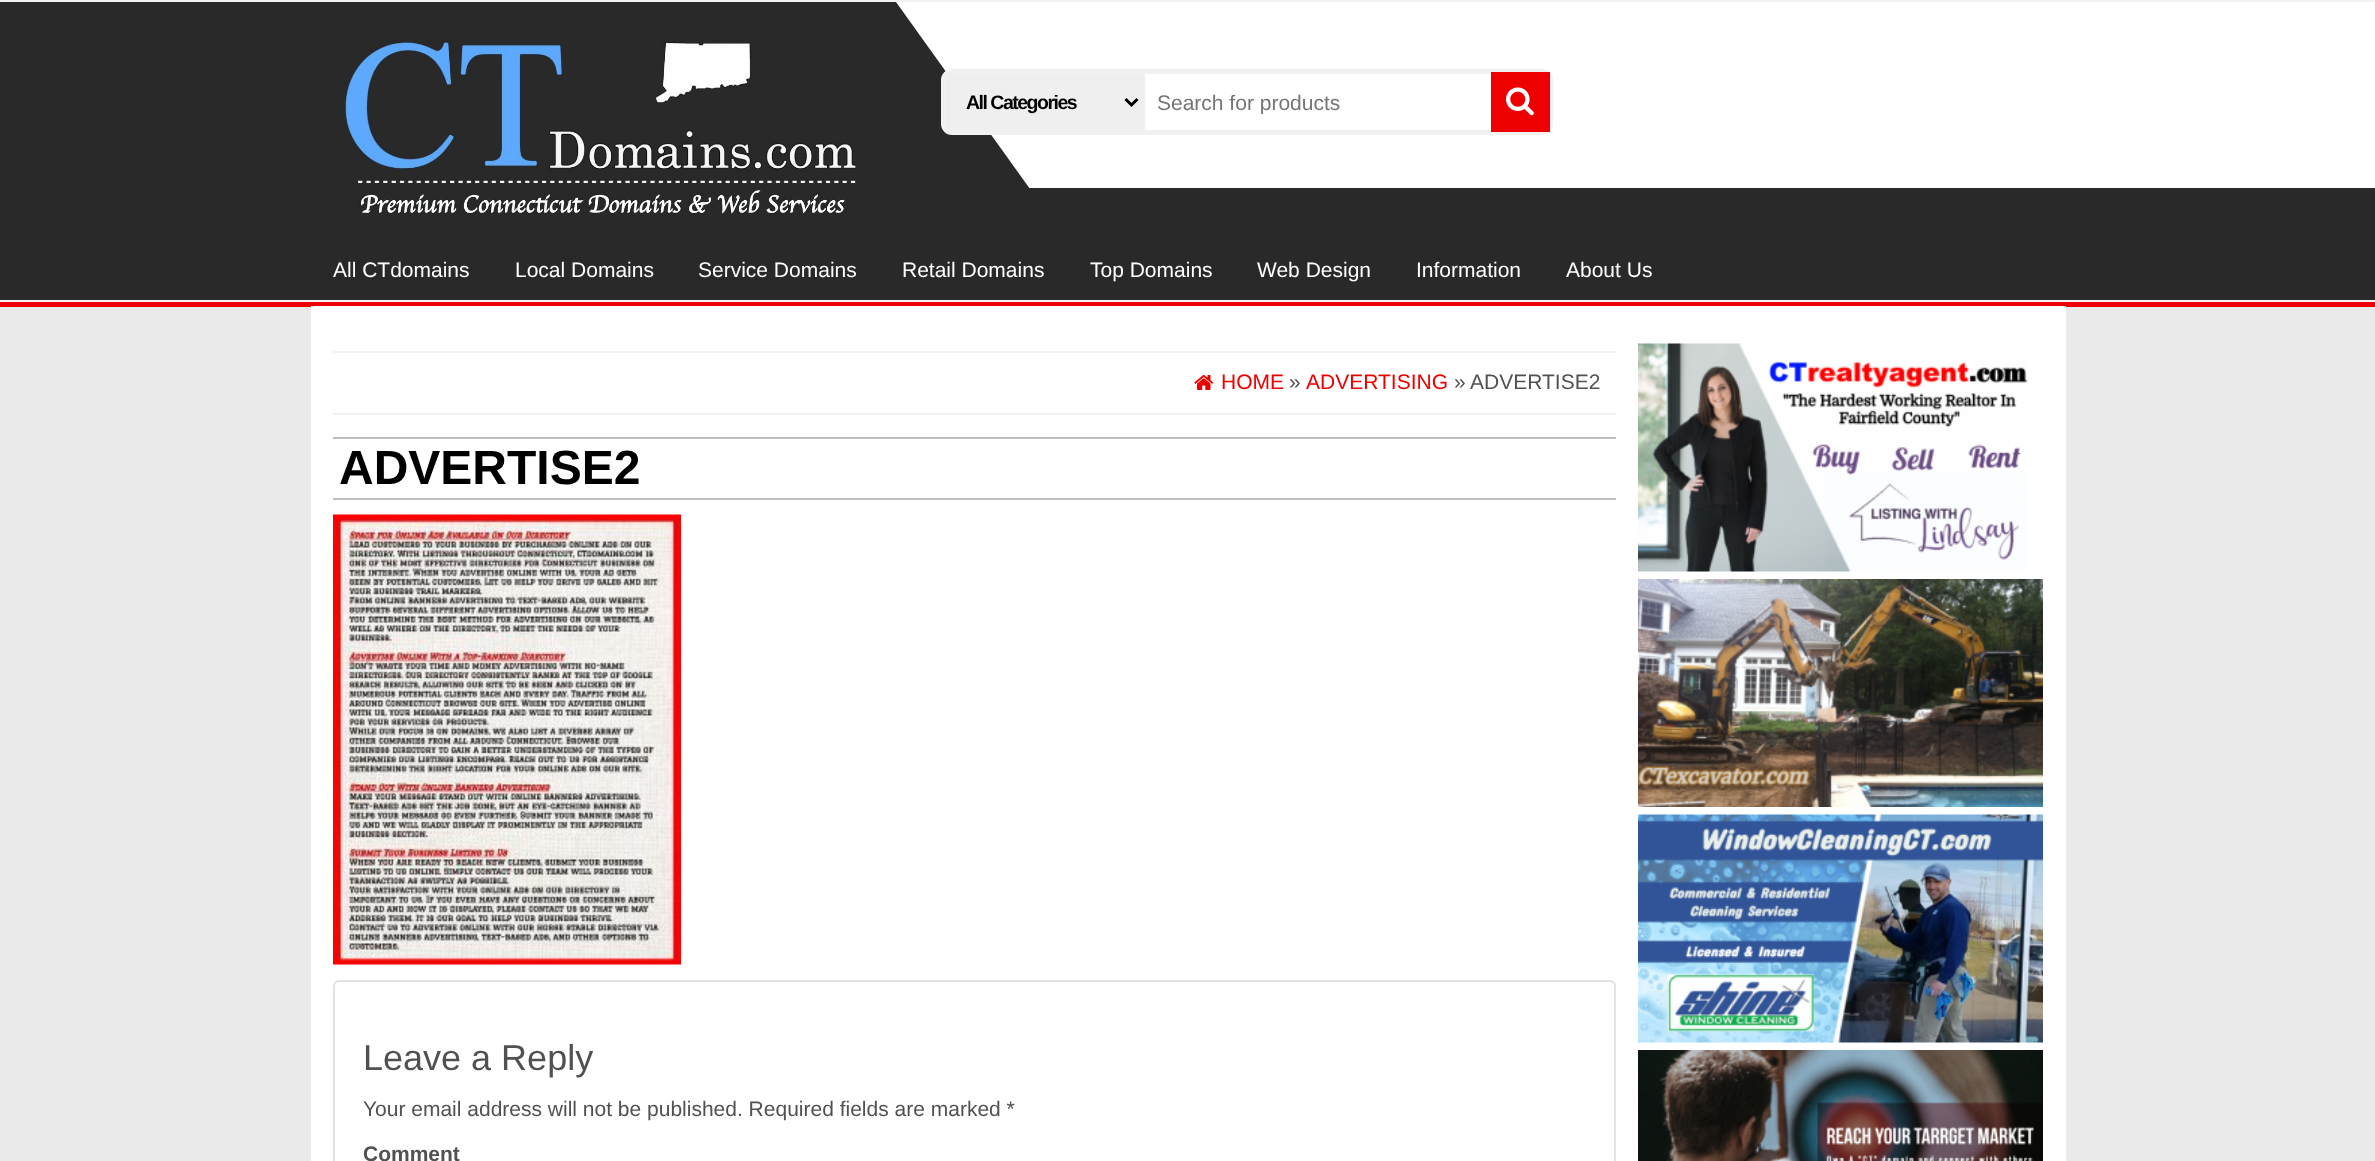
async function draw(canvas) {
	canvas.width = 2375;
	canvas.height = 1161;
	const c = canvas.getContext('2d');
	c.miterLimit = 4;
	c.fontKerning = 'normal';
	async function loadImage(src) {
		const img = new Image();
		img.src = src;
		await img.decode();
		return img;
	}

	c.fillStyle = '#eaeaea';
	c.fillRect(0, 0, 2375, 1161);
	for (const [x, y, w, h, color] of [
		[0, 302, 2375, 5, '#ef0000'],
		[0, 0, 2375, 2, '#f1f1f1'],
		[0, 2, 2375, 298, '#292929'],
		[0, 300, 2375, 2, '#f1f1f1'],
	]) {
		c.fillStyle = color;
		c.fillRect(x, y, w, h);
	}
	c.drawImage(await loadImage('img1.png'), 341, 40, 516, 177);
	c.fillStyle = '#fff';
	c.fillRect(896, 2, 1479, 186);
	c.fillStyle = '#292929';
	c.beginPath();
	c.moveTo(896, 189);
	c.lineTo(896, 2);
	c.lineTo(1030, 189);
	c.closePath();
	c.fill();
	c.beginPath();
	c.roundRect(942.5, 70.5, 609, 63, 9.5);
	c.strokeStyle = '#f1f1f1';
	c.lineWidth = 3;
	c.stroke();
	c.fillStyle = '#efefef';
	c.beginPath();
	c.rect(945, 73, 199, 58);
	c.fill();
	c.lineWidth = 2;
	c.stroke();
	c.beginPath();
	c.moveTo(1125.5, 99);
	c.lineTo(1131.5, 105);
	c.lineTo(1137.5, 99);
	c.strokeStyle = '#000';
	c.lineWidth = 3;
	c.stroke();
	c.letterSpacing = '-1.5px';
	c.font = 'bold 19.5px Liberation Sans';
	c.fillStyle = '#000';
	c.fillText('All Categories', 966, 109);
	c.strokeStyle = '#f1f1f1';
	c.lineWidth = 2;
	c.strokeRect(1144, 73, 402, 58);
	c.save();
	c.beginPath();
	c.rect(1157, 90, 376, 24);
	c.clip();
	c.letterSpacing = '0px';
	c.font = '21px Liberation Sans';
	c.fillStyle = '#757575';
	c.fillText('Search for products', 1157, 110);
	c.restore();
	c.fillStyle = '#ef0000';
	c.fillRect(1491, 72, 59, 60);
	c.drawImage(await loadImage('img2.png'), 1506, 87, 28, 29);
	c.letterSpacing = '0px';
	c.font = '21px Liberation Sans';
	c.fillStyle = '#fff';
	for (const [text, x, y] of [
		['All CTdomains', 333, 277],
		['Local Domains', 515, 277],
		['Service Domains', 698, 277],
		['Retail Domains', 902, 277],
		['Top Domains', 1090, 277],
		['Web Design', 1257, 277],
		['Information', 1416, 277],
		['About Us', 1566, 277],
	]) {
		c.fillText(text, x, y);
	}
	for (const [x, y, w, h, color] of [
		[311, 306, 1755, 855, '#fff'],
		[333, 351, 1283, 2, '#f1f1f1'],
		[333, 413, 1283, 2, '#f1f1f1'],
	]) {
		c.fillStyle = color;
		c.fillRect(x, y, w, h);
	}
	c.drawImage(await loadImage('img3.png'), 1194, 375, 20, 15);
	c.fillStyle = '#ef0000';
	c.fillText('HOME', 1221, 389);
	c.fillStyle = '#515151';
	c.fillText('»', 1289, 389);
	c.fillStyle = '#ef0000';
	c.fillText('ADVERTISING', 1306, 389);
	c.fillStyle = '#515151';
	c.fillText('»', 1454, 389);
	c.fillText('ADVERTISE2', 1470, 389);
	c.fillStyle = '#bfbfbf';
	c.fillRect(333, 437, 1283, 2);
	c.fillRect(333, 498, 1283, 2);
	c.font = 'bold 48px Liberation Sans';
	c.fillStyle = '#000';
	c.fillText('ADVERTISE2', 339, 484);
	c.drawImage(await loadImage('img4.png'), 333, 514, 348, 451);
	c.fillStyle = '#f2f2f2';
	c.beginPath();
	c.moveTo(339, 982);
	c.lineTo(1610, 982);
	c.bezierCurveTo(1612, 982, 1614, 985, 1614, 987);
	c.lineTo(1614, 986);
	c.bezierCurveTo(1614, 983, 1612, 981, 1609, 981);
	c.lineTo(340, 981);
	c.bezierCurveTo(338, 981, 336, 982, 335, 984);
	c.bezierCurveTo(336, 983, 338, 982, 339, 982);
	c.closePath();
	c.fill();
	c.beginPath();
	c.roundRect(334, 981, 1281, 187, 5);
	c.strokeStyle = '#e3e3e3';
	c.stroke();
	c.font = '36px Liberation Sans';
	c.fillStyle = '#515151';
	c.fillText('Leave a Reply', 363, 1070);
	c.font = '21px Liberation Sans';
	c.fillText('Your email address will not be published. Required fields are marked *', 363, 1116);
	c.font = 'bold 21px Liberation Sans';
	c.fillText('Comment', 363, 1161);
	c.drawImage(await loadImage('img5.png'), 1638, 343, 390, 229);
	c.drawImage(await loadImage('img6.png'), 1638, 579, 405, 228);
	c.drawImage(await loadImage('img7.png'), 1638, 814, 405, 229);
	c.drawImage(await loadImage('img8.png'), 1638, 1050, 405, 111);
}

draw(document.querySelector('canvas'));
